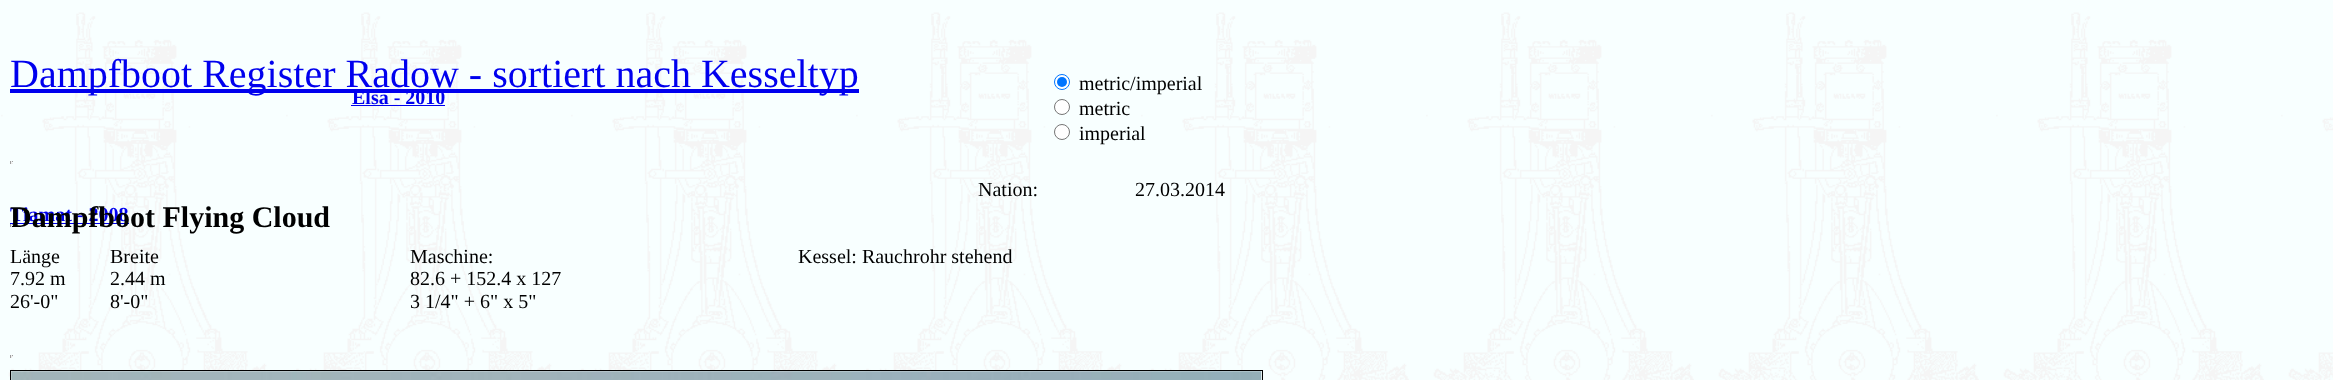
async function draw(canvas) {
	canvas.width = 2333;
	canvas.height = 380;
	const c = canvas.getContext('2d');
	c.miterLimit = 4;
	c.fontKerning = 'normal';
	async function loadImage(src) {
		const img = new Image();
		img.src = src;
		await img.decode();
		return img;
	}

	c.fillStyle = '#fff';
	c.fillRect(0, 0, 2333, 380);
	c.drawImage(await loadImage('img1.png'), 0, 0, 2333, 380);
	c.fillStyle = '#00e';
	c.fillRect(10, 89, 849, 4);
	c.font = '40px Liberation Serif';
	c.fillText('Dampfboot Register Radow - sortiert nach Kesseltyp', 10, 87);
	c.fillStyle = '#fff';
	c.beginPath();
	c.arc(1062, 82, 7.5, 0, 2 * Math.PI);
	c.fill();
	c.strokeStyle = '#0075ff';
	c.stroke();
	c.fillStyle = '#0075ff';
	c.beginPath();
	c.arc(1062, 82, 5, 0, 2 * Math.PI);
	c.fill();
	c.font = '20px Liberation Serif';
	c.fillStyle = '#000';
	c.fillText('metric/imperial', 1079, 90);
	c.fillStyle = '#fff';
	c.beginPath();
	c.arc(1062, 107, 7.5, 0, 2 * Math.PI);
	c.fill();
	c.strokeStyle = '#767676';
	c.stroke();
	c.fillStyle = '#000';
	c.fillText('metric', 1079, 115);
	c.fillStyle = '#fff';
	c.beginPath();
	c.arc(1062, 132, 7.5, 0, 2 * Math.PI);
	c.fill();
	c.stroke();
	c.fillStyle = '#000';
	c.fillText('imperial', 1079, 140);
	c.font = 'bold 20px Liberation Serif';
	c.fillStyle = '#00e';
	c.fillText('Elsa - 2010', 352, 104);
	c.fillRect(351, 105, 94, 1);
	c.fillText('Tiamat - 2008', 10, 221);
	for (const [x, y, w, h, color] of [
		[10, 223, 119, 1, '#00e'],
		[10, 161, 3, 1, '#9f9f9f'],
		[11, 161, 1, 3, '#eee'],
		[10, 163, 3, 1, '#eee'],
		[10, 161, 1, 3, '#9f9f9f'],
	]) {
		c.fillStyle = color;
		c.fillRect(x, y, w, h);
	}
	c.font = '20px Liberation Serif';
	c.fillStyle = '#000';
	c.fillText('Nation:', 978, 196);
	c.fillText('27.03.2014', 1135, 196);
	c.font = 'bold 30px Liberation Serif';
	c.fillText('Dampfboot Flying Cloud', 10, 227);
	for (const [x, y, w, h, color] of [
		[10, 224, 3, 1, '#9f9f9f'],
		[11, 224, 1, 3, '#eee'],
		[10, 225, 3, 1, '#eee'],
		[10, 224, 1, 3, '#9f9f9f'],
	]) {
		c.fillStyle = color;
		c.fillRect(x, y, w, h);
	}
	c.font = '20px Liberation Serif';
	c.fillStyle = '#000';
	for (const [text, x, y] of [
		['Länge', 10, 263],
		['7.92 m', 10, 285],
		['26\'-0"', 10, 308],
		['Breite', 110, 263],
		['2.44 m', 110, 285],
		['8\'-0"', 110, 308],
		['Maschine:', 410, 263],
		['82.6 + 152.4 x 127', 410, 285],
		['3 1/4" + 6" x 5"', 410, 308],
		['Kessel: Rauchrohr stehend', 798, 263],
	]) {
		c.fillText(text, x, y);
	}
	for (const [x, y, w, h, color] of [
		[10, 355, 3, 1, '#9f9f9f'],
		[11, 355, 1, 3, '#eee'],
		[10, 356, 3, 1, '#eee'],
		[10, 355, 1, 3, '#9f9f9f'],
	]) {
		c.fillStyle = color;
		c.fillRect(x, y, w, h);
	}
	c.strokeStyle = '#000';
	c.strokeRect(10.5, 370.5, 1252, 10);
	c.drawImage(await loadImage('img2.png'), 11, 371, 1251, 9);
}

draw(document.querySelector('canvas'));
